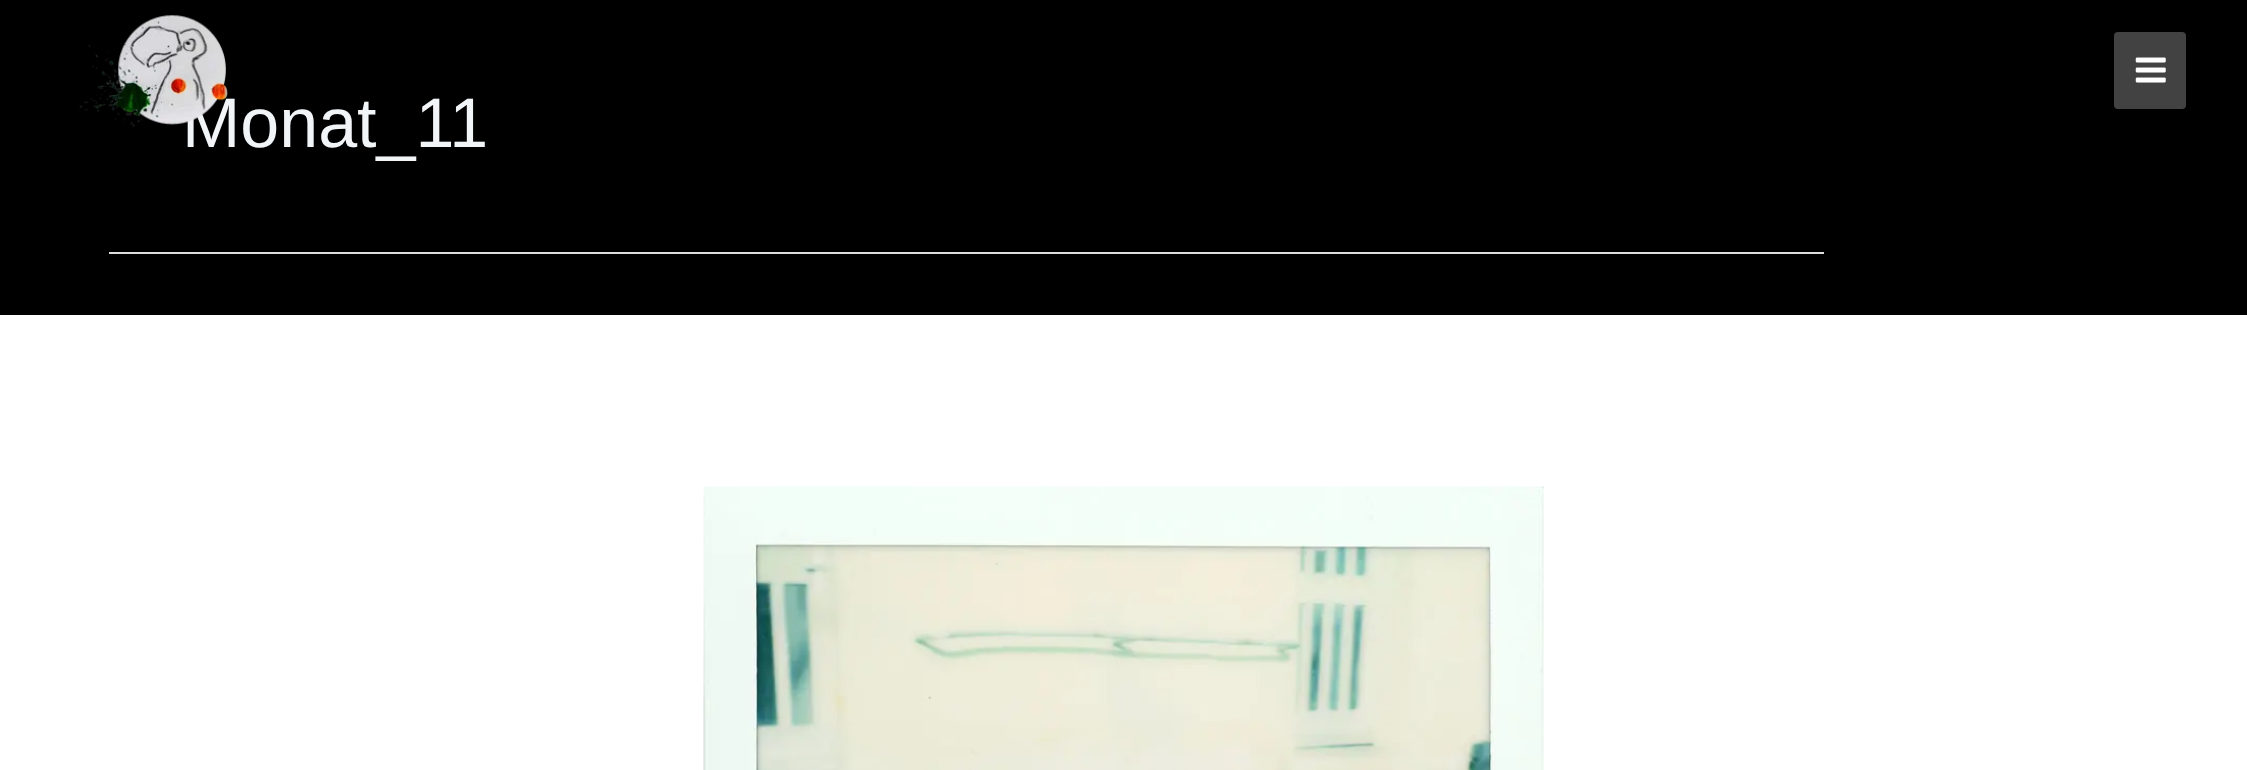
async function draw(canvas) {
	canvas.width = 2247;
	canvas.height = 770;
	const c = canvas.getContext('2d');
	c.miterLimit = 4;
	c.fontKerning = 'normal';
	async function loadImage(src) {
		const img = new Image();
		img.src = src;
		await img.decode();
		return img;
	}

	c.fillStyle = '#000';
	c.fillRect(0, 0, 2247, 770);
	c.font = '70px Liberation Sans';
	c.fillStyle = '#f2f5f7';
	c.fillText('Monat_11', 182, 147);
	c.drawImage(await loadImage('img1.png'), 79, 15, 149, 112);
	c.fillStyle = '#424242';
	c.beginPath();
	c.roundRect(2114, 32, 72, 77, 4);
	c.fill();
	c.drawImage(await loadImage('img2.png'), 2135, 57, 31, 26);
	c.fillStyle = '#ddd';
	c.fillRect(109, 252, 1715, 2);
	c.fillStyle = '#fff';
	c.fillRect(0, 315, 2247, 455);
	c.drawImage(await loadImage('img3.png'), 703, 486, 841, 284);
}

draw(document.querySelector('canvas'));
